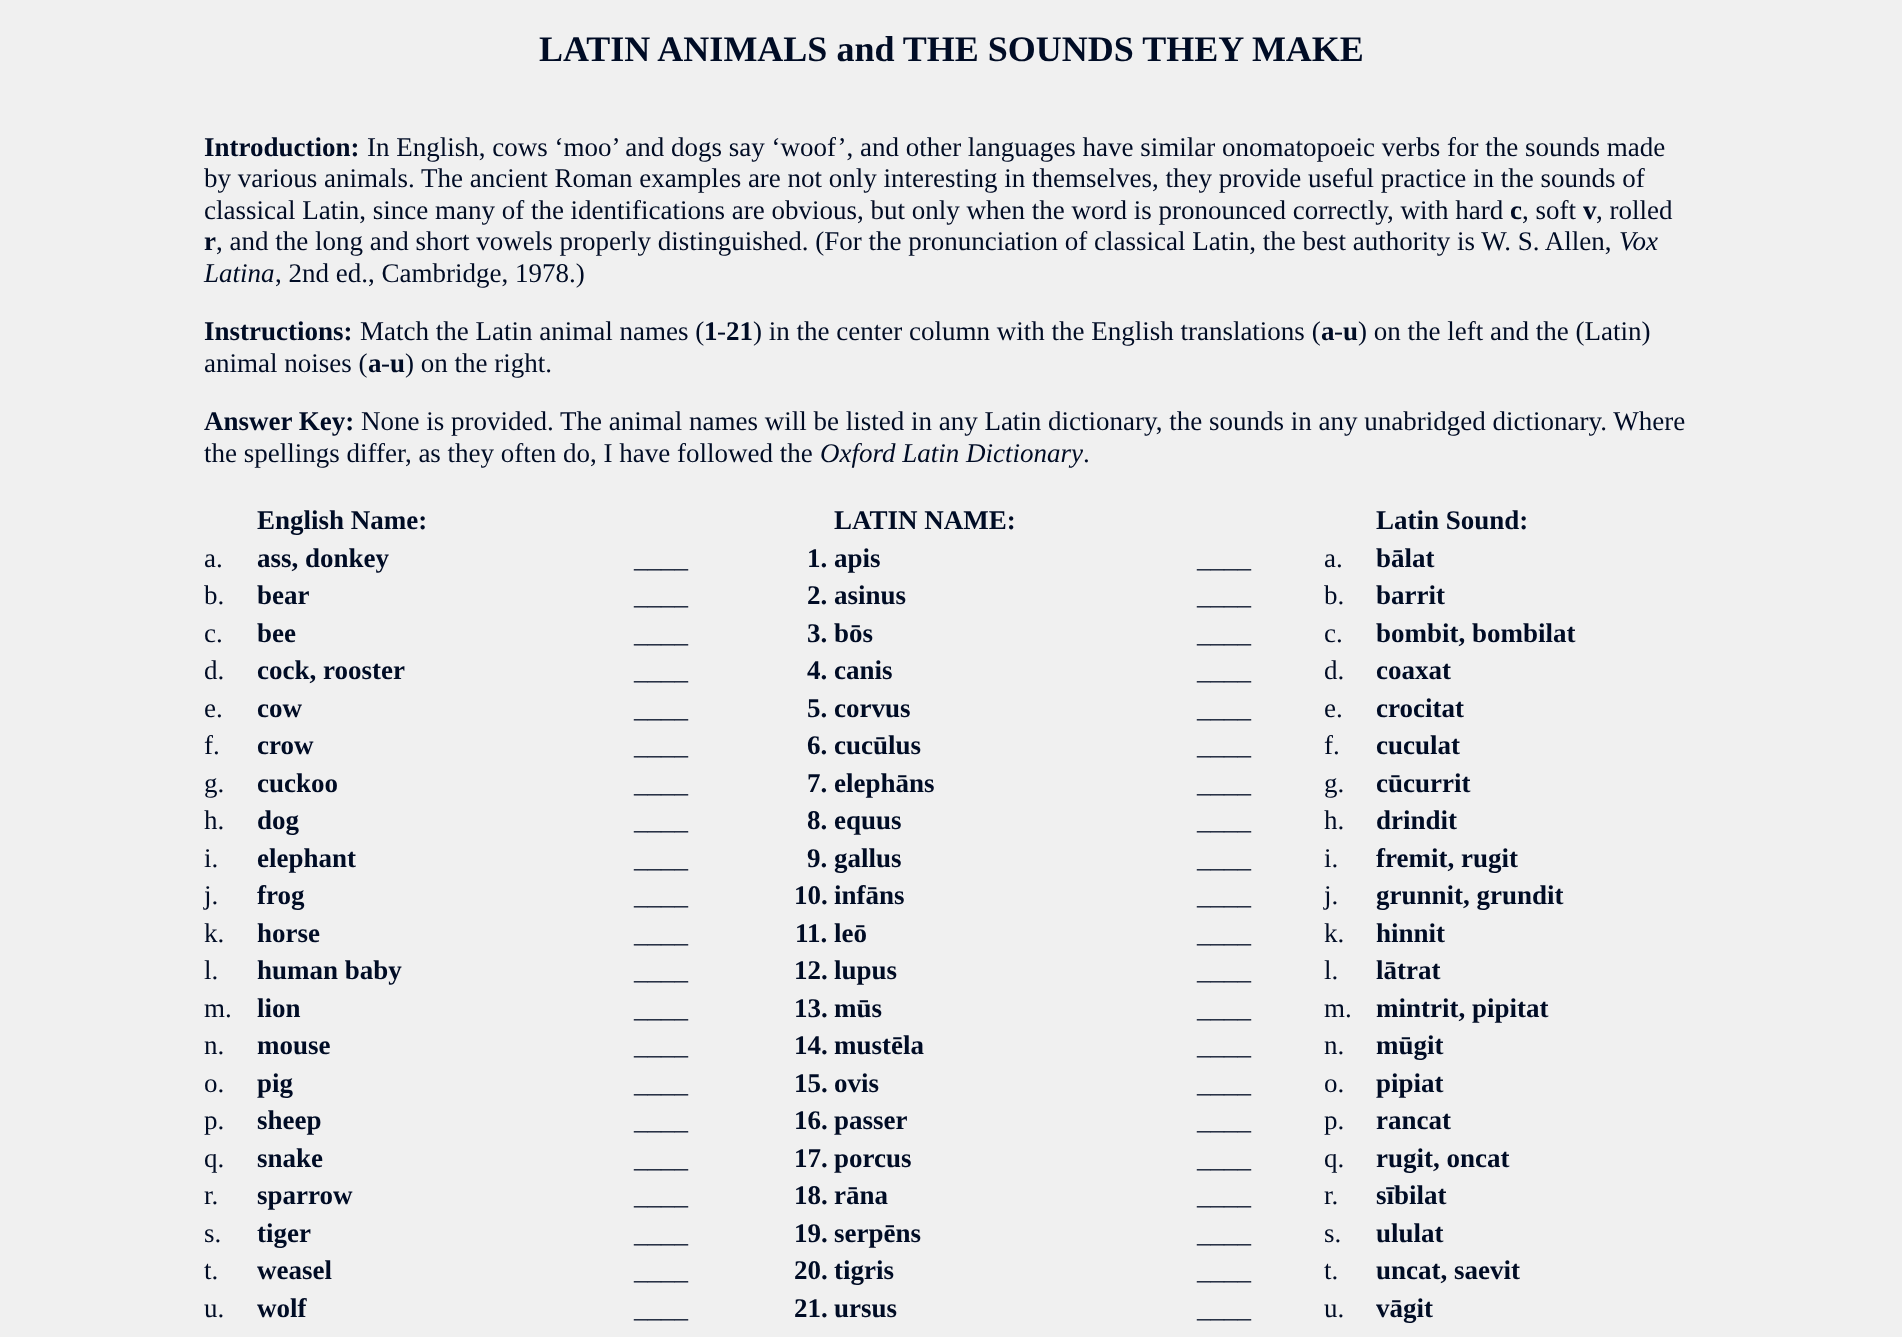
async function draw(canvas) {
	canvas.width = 1902;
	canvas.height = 1337;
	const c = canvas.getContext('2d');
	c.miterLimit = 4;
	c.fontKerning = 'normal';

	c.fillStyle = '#f0f0f0';
	c.fillRect(0, 0, 1902, 1337);
	c.font = 'bold 36px Liberation Serif';
	c.fillStyle = '#000c25';
	c.fillText('LATIN ANIMALS and THE SOUNDS THEY MAKE', 539, 61);
	c.font = 'bold 27px Liberation Serif';
	c.fillText('Introduction:', 204, 156);
	c.font = '27px Liberation Serif';
	for (const [text, x, y] of [
		['In English, cows ‘moo’ and dogs say ‘woof’, and other languages have similar onomatopoeic verbs for the sounds made', 367, 156],
		['by various animals.', 204, 187],
		['The ancient Roman examples are not only interesting in themselves, they provide useful practice in the sounds of', 421, 187],
		['classical Latin, since many of the identifications are obvious, but only when the word is pronounced correctly, with hard', 204, 219],
	]) {
		c.fillText(text, x, y);
	}
	c.font = 'bold 27px Liberation Serif';
	c.fillText('c', 1510, 219);
	c.font = '27px Liberation Serif';
	c.fillText(', soft', 1522, 219);
	c.font = 'bold 27px Liberation Serif';
	c.fillText('v', 1583, 219);
	c.font = '27px Liberation Serif';
	c.fillText(', rolled', 1596, 219);
	c.font = 'bold 27px Liberation Serif';
	c.fillText('r', 204, 250);
	c.font = '27px Liberation Serif';
	c.fillText(', and the long and short vowels properly distinguished. (For the pronunciation of classical Latin, the best authority is W. S. Allen,', 216, 250);
	c.font = 'italic 27px Liberation Serif';
	c.fillText('Vox', 1619, 250);
	c.fillText('Latina', 204, 282);
	c.font = '27px Liberation Serif';
	c.fillText(', 2nd ed., Cambridge, 1978.)', 275, 282);
	c.font = 'bold 27px Liberation Serif';
	c.fillText('Instructions:', 204, 340);
	c.font = '27px Liberation Serif';
	c.fillText('Match the Latin animal names (', 360, 340);
	c.font = 'bold 27px Liberation Serif';
	c.fillText('1', 704, 340);
	c.font = '27px Liberation Serif';
	c.fillText('-', 717, 340);
	c.font = 'bold 27px Liberation Serif';
	c.fillText('21', 726, 340);
	c.font = '27px Liberation Serif';
	c.fillText(') in the center column with the English translations (', 753, 340);
	c.font = 'bold 27px Liberation Serif';
	c.fillText('a', 1321, 340);
	c.font = '27px Liberation Serif';
	c.fillText('-', 1334, 340);
	c.font = 'bold 27px Liberation Serif';
	c.fillText('u', 1343, 340);
	c.font = '27px Liberation Serif';
	c.fillText(') on the left and the (Latin)', 1358, 340);
	c.fillText('animal noises (', 204, 372);
	c.font = 'bold 27px Liberation Serif';
	c.fillText('a', 368, 372);
	c.font = '27px Liberation Serif';
	c.fillText('-', 381, 372);
	c.font = 'bold 27px Liberation Serif';
	c.fillText('u', 390, 372);
	c.font = '27px Liberation Serif';
	c.fillText(') on the right.', 405, 372);
	c.font = 'bold 27px Liberation Serif';
	c.fillText('Answer Key:', 204, 430);
	c.font = '27px Liberation Serif';
	for (const [text, x, y] of [
		['None is provided.', 361, 430],
		['The animal names will be listed in any Latin dictionary, the sounds in any unabridged dictionary. Where', 560, 430],
		['the spellings differ, as they often do, I have followed the', 204, 462],
	]) {
		c.fillText(text, x, y);
	}
	c.font = 'italic 27px Liberation Serif';
	c.fillText('Oxford Latin Dictionary', 820, 462);
	c.font = '27px Liberation Serif';
	c.fillText('.', 1083, 462);
	c.font = 'bold 27px Liberation Serif';
	for (const [text, x, y] of [
		['English Name:', 257, 529],
		['LATIN NAME:', 834, 529],
		['Latin Sound:', 1376, 529],
	]) {
		c.fillText(text, x, y);
	}
	c.font = '27px Liberation Serif';
	c.fillText('a.', 204, 567);
	c.font = 'bold 27px Liberation Serif';
	for (const [text, x, y] of [
		['ass, donkey', 257, 567],
		['1.', 807, 567],
		['apis', 834, 567],
	]) {
		c.fillText(text, x, y);
	}
	c.font = '27px Liberation Serif';
	c.fillText('a.', 1324, 567);
	c.font = 'bold 27px Liberation Serif';
	c.fillText('bālat', 1376, 567);
	c.font = '27px Liberation Serif';
	for (const [text, x, y] of [
		['____', 634, 567],
		['____', 1197, 567],
		['b.', 204, 604],
	]) {
		c.fillText(text, x, y);
	}
	c.font = 'bold 27px Liberation Serif';
	for (const [text, x, y] of [
		['bear', 257, 604],
		['2.', 807, 604],
		['asinus', 834, 604],
	]) {
		c.fillText(text, x, y);
	}
	c.font = '27px Liberation Serif';
	c.fillText('b.', 1324, 604);
	c.font = 'bold 27px Liberation Serif';
	c.fillText('barrit', 1376, 604);
	c.font = '27px Liberation Serif';
	for (const [text, x, y] of [
		['____', 634, 604],
		['____', 1197, 604],
		['c.', 204, 642],
	]) {
		c.fillText(text, x, y);
	}
	c.font = 'bold 27px Liberation Serif';
	for (const [text, x, y] of [
		['bee', 257, 642],
		['3.', 807, 642],
		['bōs', 834, 642],
	]) {
		c.fillText(text, x, y);
	}
	c.font = '27px Liberation Serif';
	c.fillText('c.', 1324, 642);
	c.font = 'bold 27px Liberation Serif';
	c.fillText('bombit, bombilat', 1376, 642);
	c.font = '27px Liberation Serif';
	for (const [text, x, y] of [
		['____', 634, 642],
		['____', 1197, 642],
		['d.', 204, 679],
	]) {
		c.fillText(text, x, y);
	}
	c.font = 'bold 27px Liberation Serif';
	for (const [text, x, y] of [
		['cock, rooster', 257, 679],
		['4.', 807, 679],
		['canis', 834, 679],
	]) {
		c.fillText(text, x, y);
	}
	c.font = '27px Liberation Serif';
	c.fillText('d.', 1324, 679);
	c.font = 'bold 27px Liberation Serif';
	c.fillText('coaxat', 1376, 679);
	c.font = '27px Liberation Serif';
	for (const [text, x, y] of [
		['____', 634, 679],
		['____', 1197, 679],
		['e.', 204, 717],
	]) {
		c.fillText(text, x, y);
	}
	c.font = 'bold 27px Liberation Serif';
	for (const [text, x, y] of [
		['cow', 257, 717],
		['5.', 807, 717],
		['corvus', 834, 717],
	]) {
		c.fillText(text, x, y);
	}
	c.font = '27px Liberation Serif';
	c.fillText('e.', 1324, 717);
	c.font = 'bold 27px Liberation Serif';
	c.fillText('crocitat', 1376, 717);
	c.font = '27px Liberation Serif';
	for (const [text, x, y] of [
		['____', 634, 717],
		['____', 1197, 717],
		['f.', 204, 754],
	]) {
		c.fillText(text, x, y);
	}
	c.font = 'bold 27px Liberation Serif';
	for (const [text, x, y] of [
		['crow', 257, 754],
		['6.', 807, 754],
		['cucūlus', 834, 754],
	]) {
		c.fillText(text, x, y);
	}
	c.font = '27px Liberation Serif';
	c.fillText('f.', 1324, 754);
	c.font = 'bold 27px Liberation Serif';
	c.fillText('cuculat', 1376, 754);
	c.font = '27px Liberation Serif';
	for (const [text, x, y] of [
		['____', 634, 754],
		['____', 1197, 754],
		['g.', 204, 792],
	]) {
		c.fillText(text, x, y);
	}
	c.font = 'bold 27px Liberation Serif';
	c.fillText('cuckoo', 257, 792);
	c.font = '27px Liberation Serif';
	c.fillText('____', 634, 792);
	c.font = 'bold 27px Liberation Serif';
	c.fillText('7.', 807, 792);
	c.fillText('elephāns', 834, 792);
	c.font = '27px Liberation Serif';
	c.fillText('____', 1197, 792);
	c.fillText('g.', 1324, 792);
	c.font = 'bold 27px Liberation Serif';
	c.fillText('cūcurrit', 1376, 792);
	c.font = '27px Liberation Serif';
	c.fillText('h.', 204, 829);
	c.font = 'bold 27px Liberation Serif';
	c.fillText('dog', 257, 829);
	c.font = '27px Liberation Serif';
	c.fillText('____', 634, 829);
	c.font = 'bold 27px Liberation Serif';
	c.fillText('8.', 807, 829);
	c.fillText('equus', 834, 829);
	c.font = '27px Liberation Serif';
	c.fillText('____', 1197, 829);
	c.fillText('h.', 1324, 829);
	c.font = 'bold 27px Liberation Serif';
	c.fillText('drindit', 1376, 829);
	c.font = '27px Liberation Serif';
	c.fillText('i.', 204, 867);
	c.font = 'bold 27px Liberation Serif';
	for (const [text, x, y] of [
		['elephant', 257, 867],
		['9.', 807, 867],
		['gallus', 834, 867],
	]) {
		c.fillText(text, x, y);
	}
	c.font = '27px Liberation Serif';
	c.fillText('i.', 1324, 867);
	c.font = 'bold 27px Liberation Serif';
	c.fillText('fremit, rugit', 1376, 867);
	c.font = '27px Liberation Serif';
	for (const [text, x, y] of [
		['____', 634, 867],
		['____', 1197, 867],
		['j.', 204, 904],
	]) {
		c.fillText(text, x, y);
	}
	c.font = 'bold 27px Liberation Serif';
	c.fillText('frog', 257, 904);
	c.font = '27px Liberation Serif';
	c.fillText('____', 634, 904);
	c.font = 'bold 27px Liberation Serif';
	c.fillText('10.', 794, 904);
	c.fillText('infāns', 834, 904);
	c.font = '27px Liberation Serif';
	c.fillText('____', 1197, 904);
	c.fillText('j.', 1324, 904);
	c.font = 'bold 27px Liberation Serif';
	c.fillText('grunnit, grundit', 1376, 904);
	c.font = '27px Liberation Serif';
	c.fillText('k.', 204, 942);
	c.font = 'bold 27px Liberation Serif';
	for (const [text, x, y] of [
		['horse', 257, 942],
		['11.', 795, 942],
		['leō', 834, 942],
	]) {
		c.fillText(text, x, y);
	}
	c.font = '27px Liberation Serif';
	c.fillText('k.', 1324, 942);
	c.font = 'bold 27px Liberation Serif';
	c.fillText('hinnit', 1376, 942);
	c.font = '27px Liberation Serif';
	for (const [text, x, y] of [
		['____', 634, 942],
		['____', 1197, 942],
		['l.', 204, 979],
	]) {
		c.fillText(text, x, y);
	}
	c.font = 'bold 27px Liberation Serif';
	for (const [text, x, y] of [
		['human baby', 257, 979],
		['12.', 794, 979],
		['lupus', 834, 979],
	]) {
		c.fillText(text, x, y);
	}
	c.font = '27px Liberation Serif';
	c.fillText('l.', 1324, 979);
	c.font = 'bold 27px Liberation Serif';
	c.fillText('lātrat', 1376, 979);
	c.font = '27px Liberation Serif';
	for (const [text, x, y] of [
		['____', 634, 979],
		['____', 1197, 979],
		['m.', 204, 1017],
	]) {
		c.fillText(text, x, y);
	}
	c.font = 'bold 27px Liberation Serif';
	for (const [text, x, y] of [
		['lion', 257, 1017],
		['13.', 794, 1017],
		['mūs', 834, 1017],
	]) {
		c.fillText(text, x, y);
	}
	c.font = '27px Liberation Serif';
	c.fillText('m.', 1324, 1017);
	c.font = 'bold 27px Liberation Serif';
	c.fillText('mintrit, pipitat', 1376, 1017);
	c.font = '27px Liberation Serif';
	for (const [text, x, y] of [
		['____', 634, 1017],
		['____', 1197, 1017],
		['n.', 204, 1054],
	]) {
		c.fillText(text, x, y);
	}
	c.font = 'bold 27px Liberation Serif';
	for (const [text, x, y] of [
		['mouse', 257, 1054],
		['14.', 794, 1054],
		['mustēla', 834, 1054],
	]) {
		c.fillText(text, x, y);
	}
	c.font = '27px Liberation Serif';
	c.fillText('n.', 1324, 1054);
	c.font = 'bold 27px Liberation Serif';
	c.fillText('mūgit', 1376, 1054);
	c.font = '27px Liberation Serif';
	for (const [text, x, y] of [
		['____', 634, 1054],
		['____', 1197, 1054],
		['o.', 204, 1092],
	]) {
		c.fillText(text, x, y);
	}
	c.font = 'bold 27px Liberation Serif';
	for (const [text, x, y] of [
		['pig', 257, 1092],
		['15.', 794, 1092],
		['ovis', 834, 1092],
	]) {
		c.fillText(text, x, y);
	}
	c.font = '27px Liberation Serif';
	c.fillText('o.', 1324, 1092);
	c.font = 'bold 27px Liberation Serif';
	c.fillText('pipiat', 1376, 1092);
	c.font = '27px Liberation Serif';
	for (const [text, x, y] of [
		['____', 634, 1092],
		['____', 1197, 1092],
		['p.', 204, 1129],
	]) {
		c.fillText(text, x, y);
	}
	c.font = 'bold 27px Liberation Serif';
	c.fillText('sheep', 257, 1129);
	c.font = '27px Liberation Serif';
	c.fillText('____', 634, 1129);
	c.font = 'bold 27px Liberation Serif';
	c.fillText('16.', 794, 1129);
	c.fillText('passer', 834, 1129);
	c.font = '27px Liberation Serif';
	c.fillText('____', 1197, 1129);
	c.fillText('p.', 1324, 1129);
	c.font = 'bold 27px Liberation Serif';
	c.fillText('rancat', 1376, 1129);
	c.font = '27px Liberation Serif';
	c.fillText('q.', 204, 1167);
	c.font = 'bold 27px Liberation Serif';
	c.fillText('snake', 257, 1167);
	c.font = '27px Liberation Serif';
	c.fillText('____', 634, 1167);
	c.font = 'bold 27px Liberation Serif';
	c.fillText('17.', 794, 1167);
	c.fillText('porcus', 834, 1167);
	c.font = '27px Liberation Serif';
	c.fillText('____', 1197, 1167);
	c.fillText('q.', 1324, 1167);
	c.font = 'bold 27px Liberation Serif';
	c.fillText('rugit, oncat', 1376, 1167);
	c.font = '27px Liberation Serif';
	c.fillText('r.', 204, 1204);
	c.font = 'bold 27px Liberation Serif';
	for (const [text, x, y] of [
		['sparrow', 257, 1204],
		['18.', 794, 1204],
		['rāna', 834, 1204],
	]) {
		c.fillText(text, x, y);
	}
	c.font = '27px Liberation Serif';
	c.fillText('r.', 1324, 1204);
	c.font = 'bold 27px Liberation Serif';
	c.fillText('sībilat', 1376, 1204);
	c.font = '27px Liberation Serif';
	for (const [text, x, y] of [
		['____', 634, 1204],
		['____', 1197, 1204],
		['s.', 204, 1242],
	]) {
		c.fillText(text, x, y);
	}
	c.font = 'bold 27px Liberation Serif';
	for (const [text, x, y] of [
		['tiger', 257, 1242],
		['19.', 794, 1242],
		['serpēns', 834, 1242],
	]) {
		c.fillText(text, x, y);
	}
	c.font = '27px Liberation Serif';
	c.fillText('s.', 1324, 1242);
	c.font = 'bold 27px Liberation Serif';
	c.fillText('ululat', 1376, 1242);
	c.font = '27px Liberation Serif';
	for (const [text, x, y] of [
		['____', 634, 1242],
		['____', 1197, 1242],
		['t.', 204, 1279],
	]) {
		c.fillText(text, x, y);
	}
	c.font = 'bold 27px Liberation Serif';
	for (const [text, x, y] of [
		['weasel', 257, 1279],
		['20.', 794, 1279],
		['tigris', 834, 1279],
	]) {
		c.fillText(text, x, y);
	}
	c.font = '27px Liberation Serif';
	c.fillText('t.', 1324, 1279);
	c.font = 'bold 27px Liberation Serif';
	c.fillText('uncat, saevit', 1376, 1279);
	c.font = '27px Liberation Serif';
	for (const [text, x, y] of [
		['____', 634, 1279],
		['____', 1197, 1279],
		['u.', 204, 1317],
	]) {
		c.fillText(text, x, y);
	}
	c.font = 'bold 27px Liberation Serif';
	for (const [text, x, y] of [
		['wolf', 257, 1317],
		['21.', 794, 1317],
		['ursus', 834, 1317],
	]) {
		c.fillText(text, x, y);
	}
	c.font = '27px Liberation Serif';
	c.fillText('u.', 1324, 1317);
	c.font = 'bold 27px Liberation Serif';
	c.fillText('vāgit', 1376, 1317);
	c.font = '27px Liberation Serif';
	c.fillText('____', 634, 1317);
	c.fillText('____', 1197, 1317);
}

draw(document.querySelector('canvas'));
